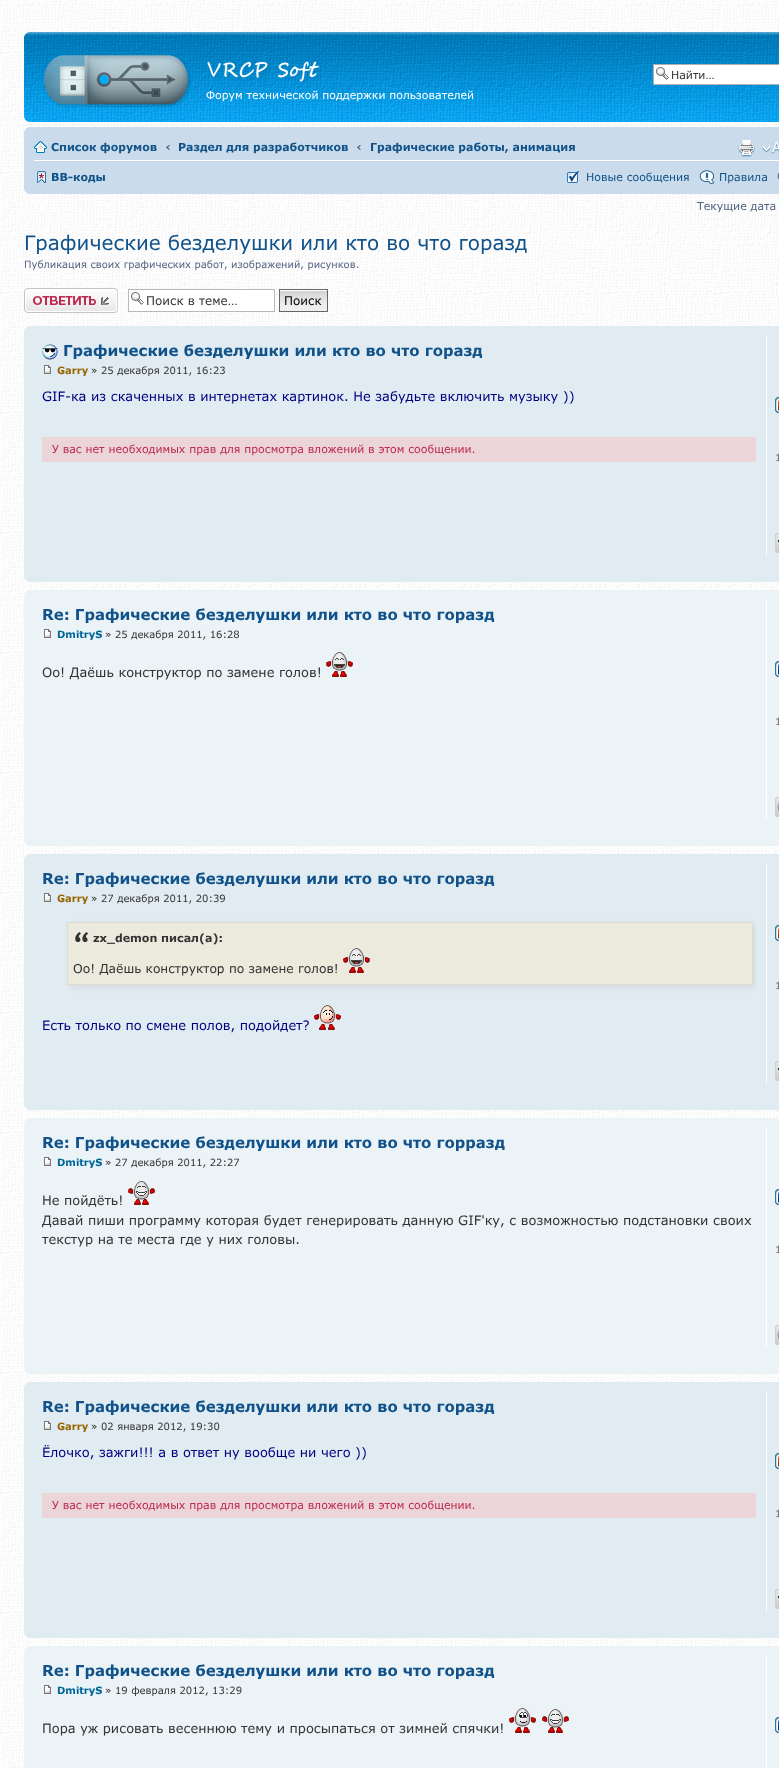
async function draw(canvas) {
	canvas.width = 779;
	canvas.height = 1768;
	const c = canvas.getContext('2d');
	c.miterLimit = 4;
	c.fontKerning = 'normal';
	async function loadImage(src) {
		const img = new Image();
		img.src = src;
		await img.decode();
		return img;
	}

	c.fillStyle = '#fff';
	c.fillRect(0, 0, 779, 1768);
	c.drawImage(await loadImage('img1.png'), 0, 0, 779, 1768);
	c.drawImage(await loadImage('img2.png'), 24, 32, 755, 90);
	c.drawImage(await loadImage('img3.png'), 24, 32, 6, 5);
	c.fillRect(654, 65, 125, 19);
	c.drawImage(await loadImage('img4.png'), 656, 67, 13, 13);
	c.strokeStyle = '#b0b0b0';
	c.strokeRect(653.5, 64.5, 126, 20);
	c.font = '11px Verdana';
	c.fillStyle = '#333';
	c.fillText('Найти…', 671, 79);
	c.drawImage(await loadImage('img5.png'), 43, 55, 148, 53);
	c.drawImage(await loadImage('img6.png'), 207, 61, 114, 23);
	c.fillStyle = '#fff';
	c.fillText('Форум технической поддержки пользователей', 206, 99);
	c.drawImage(await loadImage('img7.png'), 24, 117, 5, 5);
	c.fillStyle = '#cadceb';
	c.fillRect(24, 127, 755, 67);
	c.drawImage(await loadImage('img8.png'), 24, 127, 5, 5);
	c.fillStyle = '#fff';
	c.fillRect(34, 160, 745, 1);
	c.drawImage(await loadImage('img9.png'), 34, 141, 13, 12);
	c.font = 'bold 11px Verdana';
	c.fillStyle = '#105289';
	c.fillText('Список форумов', 51, 151);
	c.fillStyle = '#536482';
	c.fillText('‹', 165, 151);
	c.fillStyle = '#105289';
	c.fillText('Раздел для разработчиков', 178, 151);
	c.fillStyle = '#536482';
	c.fillText('‹', 356, 151);
	c.fillStyle = '#105289';
	c.fillText('Графические работы, анимация', 370, 151);
	c.drawImage(await loadImage('img10.png'), 738, 140, 17, 17);
	c.drawImage(await loadImage('img11.png'), 762, 142, 17, 12);
	c.drawImage(await loadImage('img12.png'), 37, 171, 9, 12);
	c.fillText('BB-коды', 51, 181);
	c.drawImage(await loadImage('img13.png'), 567, 171, 12, 12);
	c.font = '11px Verdana';
	c.fillText('Новые сообщения', 586, 181);
	c.drawImage(await loadImage('img14.png'), 699, 170, 16, 14);
	c.fillText('Правила', 719, 181);
	c.drawImage(await loadImage('img15.png'), 777, 173, 2, 7);
	c.drawImage(await loadImage('img16.png'), 24, 189, 5, 5);
	c.fillStyle = '#536482';
	c.fillText('Текущие дата', 697, 210);
	c.font = '20px Verdana';
	c.fillStyle = '#105289';
	c.fillText('Графические безделушки или кто во что горазд', 24, 250);
	c.font = '10px Verdana';
	c.fillStyle = '#536482';
	c.fillText('Публикация своих графических работ, изображений, рисунков.', 24, 268);
	c.drawImage(await loadImage('img17.png'), 24, 288, 94, 25);
	c.fillStyle = '#fff';
	c.fillRect(129, 290, 145, 21);
	c.drawImage(await loadImage('img4.png'), 131, 292, 13, 13);
	c.strokeStyle = '#b4bac0';
	c.strokeRect(128.5, 289.5, 146, 22);
	c.font = '12px Verdana';
	c.fillStyle = '#333';
	c.fillText('Поиск в теме…', 146, 305);
	c.drawImage(await loadImage('img18.png'), 280, 290, 47, 21);
	c.strokeStyle = '#666';
	c.strokeRect(279.5, 289.5, 48, 22);
	c.fillStyle = '#000';
	c.fillText('Поиск', 284, 305);
	c.fillStyle = '#e1ebf2';
	c.fillRect(24, 326, 755, 256);
	c.drawImage(await loadImage('img19.png'), 24, 326, 5, 5);
	c.drawImage(await loadImage('img20.png'), 42, 344, 16, 16);
	c.font = 'bold 15px Verdana';
	c.fillStyle = '#105289';
	c.fillText('Графические безделушки или кто во что горазд', 63, 356);
	c.drawImage(await loadImage('img21.png'), 44, 365, 7, 9);
	c.font = 'bold 10px Verdana';
	c.fillStyle = '#960';
	c.fillText('Garry', 57, 374);
	c.font = '10px Verdana';
	c.fillStyle = '#333';
	c.fillText('» 25 декабря 2011, 16:23', 91, 374);
	c.font = '13px Verdana';
	c.fillStyle = '#000080';
	c.fillText('GIF-ка из скаченных в интернетах картинок. Не забудьте включить музыку ))', 42, 401);
	c.fillStyle = '#ecd5d8';
	c.fillRect(42, 437, 714, 25);
	c.font = '11px Verdana';
	c.fillStyle = '#bc2a4d';
	c.fillText('У вас нет необходимых прав для просмотра вложений в этом сообщении.', 52, 453);
	c.fillStyle = '#fff';
	c.fillRect(766, 336, 1, 220);
	c.drawImage(await loadImage('img22.png'), 775, 397, 4, 16);
	c.font = '10px Verdana';
	c.fillStyle = '#666';
	c.fillText('1', 775, 461);
	c.drawImage(await loadImage('img23.png'), 775, 533, 4, 20);
	c.drawImage(await loadImage('img24.png'), 24, 577, 5, 5);
	c.fillStyle = '#ecf3f7';
	c.fillRect(24, 590, 755, 256);
	c.drawImage(await loadImage('img25.png'), 24, 590, 5, 5);
	c.font = 'bold 15px Verdana';
	c.fillStyle = '#105289';
	c.fillText('Re: Графические безделушки или кто во что горазд', 42, 620);
	c.drawImage(await loadImage('img26.png'), 44, 629, 7, 9);
	c.font = 'bold 10px Verdana';
	c.fillStyle = '#069';
	c.fillText('DmitryS', 57, 638);
	c.font = '10px Verdana';
	c.fillStyle = '#333';
	c.fillText('» 25 декабря 2011, 16:28', 105, 638);
	c.font = '13px Verdana';
	c.fillText('Оо! Даёшь конструктор по замене голов!', 42, 677);
	c.drawImage(await loadImage('img27.png'), 326, 651, 27, 26);
	c.fillStyle = '#fff';
	c.fillRect(766, 600, 1, 220);
	c.drawImage(await loadImage('img28.png'), 775, 661, 4, 16);
	c.font = '10px Verdana';
	c.fillStyle = '#666';
	c.fillText('1', 775, 725);
	c.drawImage(await loadImage('img29.png'), 775, 797, 4, 20);
	c.drawImage(await loadImage('img30.png'), 24, 841, 5, 5);
	c.fillStyle = '#e1ebf2';
	c.fillRect(24, 854, 755, 256);
	c.drawImage(await loadImage('img19.png'), 24, 854, 5, 5);
	c.font = 'bold 15px Verdana';
	c.fillStyle = '#105289';
	c.fillText('Re: Графические безделушки или кто во что горазд', 42, 884);
	c.drawImage(await loadImage('img21.png'), 44, 893, 7, 9);
	c.font = 'bold 10px Verdana';
	c.fillStyle = '#960';
	c.fillText('Garry', 57, 902);
	c.font = '10px Verdana';
	c.fillStyle = '#333';
	c.fillText('» 27 декабря 2011, 20:39', 91, 902);
	c.save();
	c.beginPath();
	c.rect(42, 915, 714, 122);
	c.clip();
	c.fillStyle = '#cfcfcf80';
	c.filter = 'blur(3px)';
	c.beginPath();
	c.rect(70, 925, 686, 63);
	c.fill();
	c.filter = 'none';
	c.restore();
	c.fillStyle = '#ebeadd';
	c.fillRect(68, 923, 684, 61);
	c.drawImage(await loadImage('img31.png'), 75, 932, 14, 10);
	c.strokeStyle = '#dbdbce';
	c.strokeRect(67.5, 922.5, 685, 62);
	c.font = 'bold 11.1px Verdana';
	c.fillStyle = '#333';
	c.fillText('zx_demon писал(а):', 93, 942);
	c.font = '12.35px Verdana';
	c.fillText('Оо! Даёшь конструктор по замене голов!', 73, 973);
	c.drawImage(await loadImage('img32.png'), 343, 947, 27, 26);
	c.font = '13px Verdana';
	c.fillStyle = '#000080';
	c.fillText('Есть только по смене полов, подойдет?', 42, 1030);
	c.drawImage(await loadImage('img33.png'), 314, 1004, 27, 26);
	c.fillStyle = '#fff';
	c.fillRect(766, 864, 1, 220);
	c.drawImage(await loadImage('img22.png'), 775, 925, 4, 16);
	c.font = '10px Verdana';
	c.fillStyle = '#666';
	c.fillText('1', 775, 989);
	c.drawImage(await loadImage('img23.png'), 775, 1061, 4, 20);
	c.drawImage(await loadImage('img24.png'), 24, 1105, 5, 5);
	c.fillStyle = '#ecf3f7';
	c.fillRect(24, 1118, 755, 256);
	c.drawImage(await loadImage('img25.png'), 24, 1118, 5, 5);
	c.font = 'bold 15px Verdana';
	c.fillStyle = '#105289';
	c.fillText('Re: Графические безделушки или кто во что горразд', 42, 1148);
	c.drawImage(await loadImage('img26.png'), 44, 1157, 7, 9);
	c.font = 'bold 10px Verdana';
	c.fillStyle = '#069';
	c.fillText('DmitryS', 57, 1166);
	c.font = '10px Verdana';
	c.fillStyle = '#333';
	c.fillText('» 27 декабря 2011, 22:27', 105, 1166);
	c.font = '13px Verdana';
	c.fillText('Не пойдёть!', 42, 1205);
	c.drawImage(await loadImage('img34.png'), 128, 1180, 27, 25);
	c.fillText('Давай пиши программу которая будет генерировать данную GIF\'ку, с возможностью подстановки своих', 42, 1225);
	c.fillText('текстур на те места где у них головы.', 42, 1244);
	c.fillStyle = '#fff';
	c.fillRect(766, 1128, 1, 220);
	c.drawImage(await loadImage('img28.png'), 775, 1189, 4, 16);
	c.font = '10px Verdana';
	c.fillStyle = '#666';
	c.fillText('1', 775, 1253);
	c.drawImage(await loadImage('img29.png'), 775, 1325, 4, 20);
	c.drawImage(await loadImage('img30.png'), 24, 1369, 5, 5);
	c.fillStyle = '#e1ebf2';
	c.fillRect(24, 1382, 755, 256);
	c.drawImage(await loadImage('img19.png'), 24, 1382, 5, 5);
	c.font = 'bold 15px Verdana';
	c.fillStyle = '#105289';
	c.fillText('Re: Графические безделушки или кто во что горазд', 42, 1412);
	c.drawImage(await loadImage('img21.png'), 44, 1421, 7, 9);
	c.font = 'bold 10px Verdana';
	c.fillStyle = '#960';
	c.fillText('Garry', 57, 1430);
	c.font = '10px Verdana';
	c.fillStyle = '#333';
	c.fillText('» 02 января 2012, 19:30', 91, 1430);
	c.font = '13px Verdana';
	c.fillStyle = '#000080';
	c.fillText('Ёлочко, зажги!!! а в ответ ну вообще ни чего ))', 42, 1457);
	c.fillStyle = '#ecd5d8';
	c.fillRect(42, 1493, 714, 25);
	c.font = '11px Verdana';
	c.fillStyle = '#bc2a4d';
	c.fillText('У вас нет необходимых прав для просмотра вложений в этом сообщении.', 52, 1509);
	c.fillStyle = '#fff';
	c.fillRect(766, 1392, 1, 220);
	c.drawImage(await loadImage('img22.png'), 775, 1453, 4, 16);
	c.font = '10px Verdana';
	c.fillStyle = '#666';
	c.fillText('1', 775, 1517);
	c.drawImage(await loadImage('img23.png'), 775, 1589, 4, 20);
	c.drawImage(await loadImage('img24.png'), 24, 1633, 5, 5);
	c.fillStyle = '#ecf3f7';
	c.fillRect(24, 1646, 755, 122);
	c.drawImage(await loadImage('img25.png'), 24, 1646, 5, 5);
	c.font = 'bold 15px Verdana';
	c.fillStyle = '#105289';
	c.fillText('Re: Графические безделушки или кто во что горазд', 42, 1676);
	c.drawImage(await loadImage('img26.png'), 44, 1685, 7, 9);
	c.font = 'bold 10px Verdana';
	c.fillStyle = '#069';
	c.fillText('DmitryS', 57, 1694);
	c.font = '10px Verdana';
	c.fillStyle = '#333';
	c.fillText('» 19 февраля 2012, 13:29', 105, 1694);
	c.font = '13px Verdana';
	c.fillText('Пора уж рисовать весеннюю тему и просыпаться от зимней спячки!', 42, 1733);
	c.drawImage(await loadImage('img35.png'), 509, 1707, 27, 26);
	c.drawImage(await loadImage('img34.png'), 542, 1708, 27, 25);
	c.fillStyle = '#fff';
	c.fillRect(766, 1656, 1, 112);
	c.drawImage(await loadImage('img28.png'), 775, 1717, 4, 16);
}

draw(document.querySelector('canvas'));
